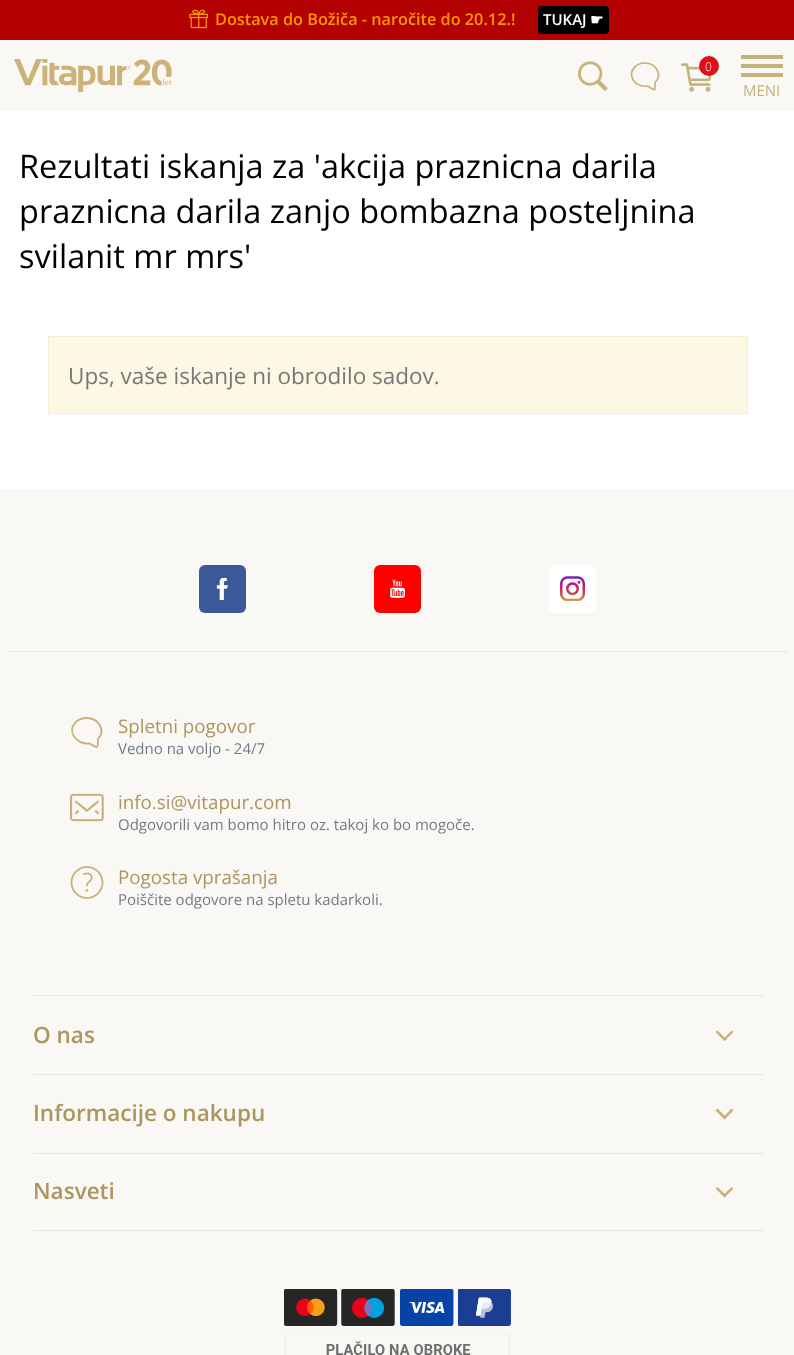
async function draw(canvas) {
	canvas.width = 794;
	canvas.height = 1355;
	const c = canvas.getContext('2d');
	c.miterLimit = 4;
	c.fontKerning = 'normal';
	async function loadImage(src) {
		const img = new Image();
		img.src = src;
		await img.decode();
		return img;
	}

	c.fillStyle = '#fff';
	c.fillRect(0, 0, 794, 1355);
	c.fillStyle = '#b30000';
	c.fillRect(0, 0, 794, 40);
	c.drawImage(await loadImage('img1.png'), 189, 9, 20, 20);
	c.font = '600 16.25px Open Sans';
	c.fillStyle = '#ff9800';
	c.fillText('Dostava do Božiča - naročite do 20.12.!', 215, 25);
	c.fillStyle = '#000';
	c.beginPath();
	c.roundRect(538, 6, 71, 28, 4);
	c.fill();
	c.font = '600 15px Open Sans';
	c.fillStyle = '#fff';
	c.fillText('TUKAJ', 543, 25);
	c.font = 'bold 15px DejaVu Sans';
	c.fillText('☛', 590, 25);
	c.fillStyle = '#f9f8f4';
	c.fillRect(0, 40, 794, 71);
	c.drawImage(await loadImage('img2.png'), 14, 59, 158, 34);
	c.drawImage(await loadImage('img3.png'), 578, 61, 30, 30);
	c.beginPath();
	c.moveTo(645, 63);
	c.bezierCurveTo(641.5, 63, 638, 64, 635.5, 66.5);
	c.bezierCurveTo(625.5, 75, 636, 88, 647.5, 86);
	c.bezierCurveTo(655.5, 90.5, 655, 92.5, 655, 82.5);
	c.bezierCurveTo(663.5, 74.5, 655.5, 63, 645, 63);
	c.closePath();
	c.strokeStyle = '#c9b177';
	c.lineWidth = 1.7;
	c.stroke();
	c.drawImage(await loadImage('img4.png'), 681, 63, 31, 29);
	c.fillStyle = '#de111b';
	c.beginPath();
	c.arc(709, 66, 10, 0, 2 * Math.PI);
	c.fill();
	c.font = '300 12px Open Sans';
	c.fillStyle = '#fff';
	c.fillText('0', 705, 71);
	for (const [x, y, w, h, color] of [
		[741, 55, 42, 4, '#c4b27b'],
		[741, 64, 42, 4, '#c4b27b'],
		[741, 73, 42, 4, '#c4b27b'],
	]) {
		c.fillStyle = color;
		c.fillRect(x, y, w, h);
	}
	c.font = '15px Open Sans';
	c.fillText('MENI', 743, 96);
	c.font = '32.5px Open Sans';
	c.fillStyle = '#000';
	for (const [text, x, y] of [
		['Rezultati iskanja za \'akcija praznicna darila', 19, 178],
		['praznicna darila zanjo bombazna posteljnina', 19, 223],
		['svilanit mr mrs\'', 19, 268],
	]) {
		c.fillText(text, x, y);
	}
	c.fillStyle = '#fcf8e3';
	c.beginPath();
	c.rect(48.5, 336.5, 699, 77);
	c.fill();
	c.strokeStyle = '#faebcc';
	c.lineWidth = 1;
	c.stroke();
	c.font = '22.5px Open Sans';
	c.fillStyle = '#777';
	c.fillText('Ups, vaše iskanje ni obrodilo sadov.', 68, 384);
	c.fillStyle = '#f9f8f4';
	c.fillRect(0, 489, 794, 866);
	c.fillStyle = '#e7e6e3';
	c.fillRect(8, 651, 780, 1);
	c.fillStyle = '#3b5998';
	c.beginPath();
	c.roundRect(199, 565, 47, 48, 6);
	c.fill();
	c.drawImage(await loadImage('img5.png'), 216, 578, 12, 22);
	c.fillStyle = '#f00';
	c.beginPath();
	c.roundRect(374, 565, 47, 48, 6);
	c.fill();
	c.drawImage(await loadImage('img6.png'), 390, 579, 15, 19);
	c.fillStyle = '#fff';
	c.beginPath();
	c.roundRect(549, 565, 47, 48, 6);
	c.fill();
	c.drawImage(await loadImage('img7.png'), 560, 576, 25, 25);
	c.beginPath();
	c.moveTo(87, 718);
	c.bezierCurveTo(83, 718, 79.5, 719, 76.5, 721.5);
	c.bezierCurveTo(65.5, 731.5, 77, 745, 89.5, 743.5);
	c.bezierCurveTo(98, 748, 98, 750, 98, 739);
	c.bezierCurveTo(106.5, 730.5, 98, 718, 87, 718);
	c.closePath();
	c.strokeStyle = '#c9b177';
	c.lineWidth = 1.8;
	c.stroke();
	c.font = '18.75px Open Sans';
	c.fillStyle = '#ac955e';
	c.fillText('Spletni pogovor', 118, 733);
	c.font = '15px Open Sans';
	c.fillStyle = '#727a89';
	c.fillText('Vedno na voljo - 24/7', 118, 754);
	c.drawImage(await loadImage('img8.png'), 70, 793, 34, 29);
	c.font = '18.75px Open Sans';
	c.fillStyle = '#ac955e';
	c.fillText('info.si@vitapur.com', 118, 809);
	c.font = '15px Open Sans';
	c.fillStyle = '#727a89';
	c.fillText('Odgovorili vam bomo hitro oz. takoj ko bo mogoče.', 118, 830);
	c.drawImage(await loadImage('img9.png'), 70, 866, 34, 33);
	c.font = '18.75px Open Sans';
	c.fillStyle = '#ac955e';
	c.fillText('Pogosta vprašanja', 118, 884);
	c.font = '15px Open Sans';
	c.fillStyle = '#727a89';
	c.fillText('Poiščite odgovore na spletu kadarkoli.', 118, 905);
	c.fillStyle = '#e7e6e3';
	c.fillRect(33, 995, 730, 1);
	c.fillRect(33, 1074, 730, 1);
	c.font = '600 22.5px Open Sans';
	c.fillStyle = '#ac955e';
	c.fillText('O nas', 33, 1043);
	c.fillStyle = '#c9b177';
	c.beginPath();
	c.moveTo(731.5, 1030.5);
	c.lineTo(733.5, 1032);
	c.lineTo(724.5, 1041);
	c.lineTo(723, 1039.5);
	c.closePath();
	c.fill();
	c.beginPath();
	c.moveTo(717.5, 1030.5);
	c.lineTo(726.5, 1039.5);
	c.lineTo(724.5, 1041);
	c.lineTo(715.5, 1032);
	c.closePath();
	c.fill();
	c.fillStyle = '#e7e6e3';
	c.fillRect(33, 1153, 730, 1);
	c.fillStyle = '#ac955e';
	c.fillText('Informacije o nakupu', 33, 1121);
	c.fillStyle = '#c9b177';
	c.beginPath();
	c.moveTo(731.5, 1108.5);
	c.lineTo(733.5, 1110.5);
	c.lineTo(724.5, 1119.5);
	c.lineTo(723, 1117.5);
	c.closePath();
	c.fill();
	c.beginPath();
	c.moveTo(717.5, 1108.5);
	c.lineTo(726.5, 1117.5);
	c.lineTo(724.5, 1119.5);
	c.lineTo(715.5, 1110.5);
	c.closePath();
	c.fill();
	c.fillStyle = '#e7e6e3';
	c.fillRect(33, 1230, 730, 1);
	c.fillStyle = '#ac955e';
	c.fillText('Nasveti', 33, 1199);
	c.fillStyle = '#c9b177';
	c.beginPath();
	c.moveTo(731.5, 1187);
	c.lineTo(733.5, 1188.5);
	c.lineTo(724.5, 1197.5);
	c.lineTo(723, 1195.5);
	c.closePath();
	c.fill();
	c.beginPath();
	c.moveTo(717.5, 1187);
	c.lineTo(726.5, 1195.5);
	c.lineTo(724.5, 1197.5);
	c.lineTo(715.5, 1188.5);
	c.closePath();
	c.fill();
	c.drawImage(await loadImage('img10.png'), 284, 1289, 54, 37);
	c.drawImage(await loadImage('img11.png'), 341, 1289, 54, 37);
	c.drawImage(await loadImage('img12.png'), 400, 1289, 54, 37);
	c.drawImage(await loadImage('img13.png'), 458, 1289, 53, 37);
	c.drawImage(await loadImage('img14.png'), 285, 1333, 225, 22);
}

draw(document.querySelector('canvas'));
